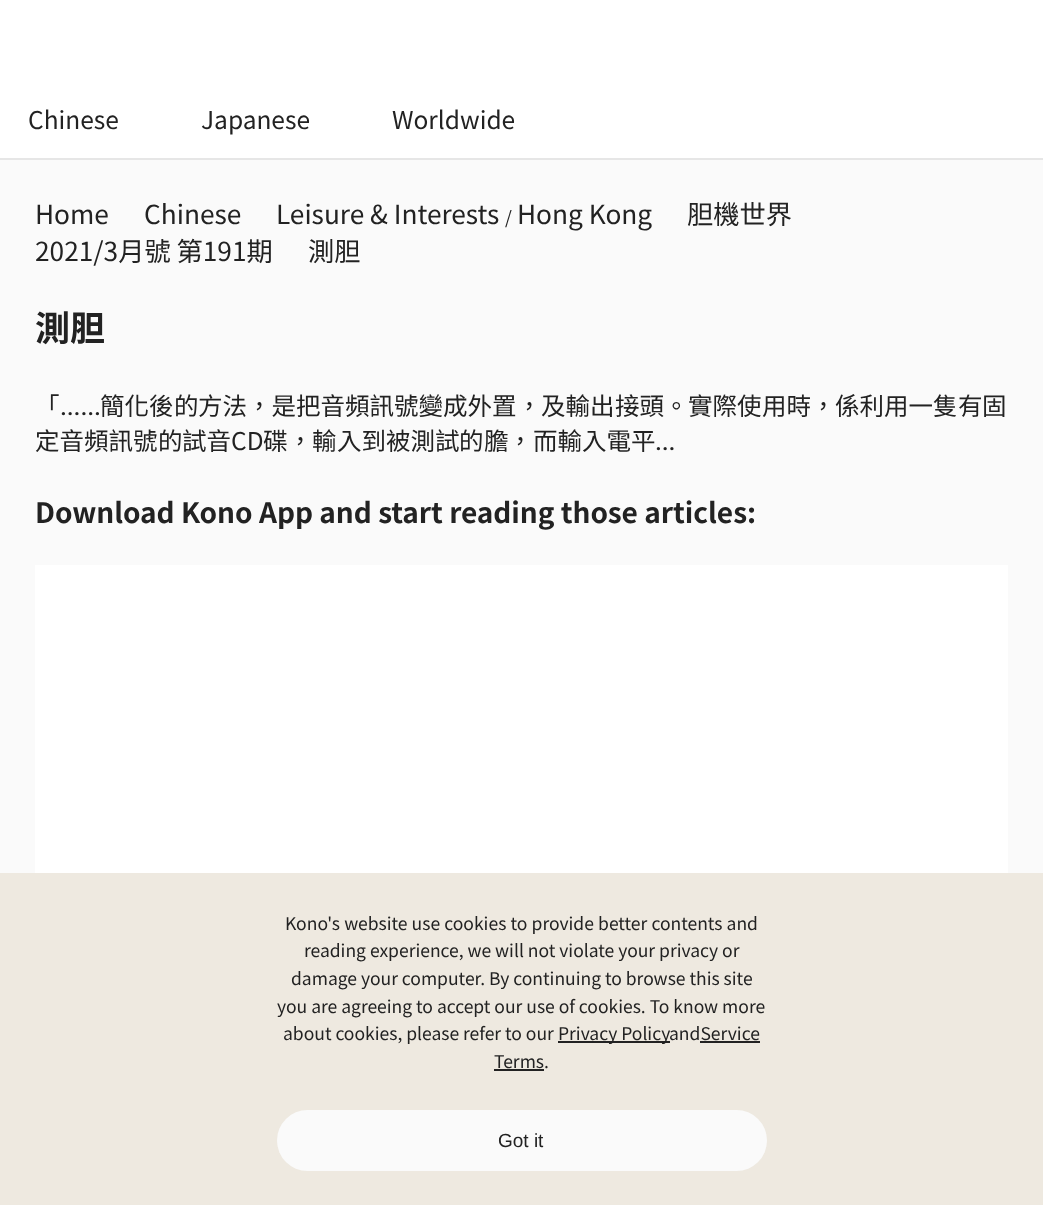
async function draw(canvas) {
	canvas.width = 1043;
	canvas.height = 1205;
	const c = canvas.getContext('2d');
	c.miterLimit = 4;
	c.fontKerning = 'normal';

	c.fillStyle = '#fff';
	c.fillRect(0, 0, 1043, 1205);
	c.fillStyle = '#e6e6e6';
	c.fillRect(0, 158, 1043, 2);
	c.font = '24.5px Noto Sans TC';
	c.fillStyle = '#222';
	for (const [text, x, y] of [
		['Chinese', 28, 129],
		['Japanese', 201, 129],
		['Worldwide', 392, 129],
	]) {
		c.fillText(text, x, y);
	}
	c.fillStyle = '#fafafa';
	c.fillRect(0, 160, 1043, 713);
	c.font = '26.25px Noto Sans TC';
	c.fillStyle = '#222';
	for (const [text, x, y] of [
		['Home', 35, 224],
		['Chinese', 144, 224],
		['Leisure & Interests', 276, 224],
	]) {
		c.fillText(text, x, y);
	}
	c.font = '17.5px Noto Sans TC';
	c.fillText('/', 505, 224);
	c.font = '26.25px Noto Sans TC';
	for (const [text, x, y] of [
		['Hong Kong', 517, 224],
		['胆機世界', 687, 224],
		['2021/3月號 第191期', 35, 261],
		['測胆', 308, 261],
	]) {
		c.fillText(text, x, y);
	}
	c.font = 'bold 35px Noto Sans TC';
	c.fillText('測胆', 35, 341);
	c.font = '24.5px Noto Sans CJK TC';
	c.fillText('「', 35, 415);
	c.fillText('簡化後', 100, 415);
	c.font = '24.5px Noto Sans TC';
	c.fillText('的', 174, 415);
	c.font = '24.5px Noto Sans CJK TC';
	c.fillText('方法', 198, 415);
	c.font = '24.5px Noto Sans TC';
	c.fillText('，是', 247, 415);
	c.font = '24.5px Noto Sans CJK TC';
	c.fillText('把音頻訊號變成外置', 296, 415);
	c.font = '24.5px Noto Sans TC';
	c.fillText('，', 517, 415);
	c.font = '24.5px Noto Sans CJK TC';
	c.fillText('及輸', 541, 415);
	c.font = '24.5px Noto Sans TC';
	c.fillText('出', 590, 415);
	c.font = '24.5px Noto Sans CJK TC';
	c.fillText('接頭', 615, 415);
	c.font = '24.5px Noto Sans TC';
	c.fillText('。', 664, 415);
	c.font = '24.5px Noto Sans CJK TC';
	c.fillText('實際使', 688, 415);
	c.font = '24.5px Noto Sans TC';
	c.fillText('用時，', 762, 415);
	c.font = '24.5px Noto Sans CJK TC';
	c.fillText('係利', 835, 415);
	c.font = '24.5px Noto Sans TC';
	c.fillText('用一', 884, 415);
	c.font = '24.5px Noto Sans CJK TC';
	c.fillText('隻', 933, 415);
	c.font = '24.5px Noto Sans TC';
	c.fillText('有', 958, 415);
	c.font = '24.5px Noto Sans CJK TC';
	c.fillText('固', 982, 415);
	c.font = '24.5px Noto Sans TC';
	c.fillText('......', 60, 415);
	c.font = '24.5px Noto Sans CJK TC';
	c.fillText('定音頻訊號', 35, 450);
	c.font = '24.5px Noto Sans TC';
	c.fillText('的', 158, 450);
	c.font = '24.5px Noto Sans CJK TC';
	c.fillText('試音', 182, 450);
	c.font = '24.5px Noto Sans TC';
	c.fillText('CD', 231, 450);
	c.font = '24.5px Noto Sans CJK TC';
	c.fillText('碟', 263, 450);
	c.font = '24.5px Noto Sans TC';
	c.fillText('，', 288, 450);
	c.font = '24.5px Noto Sans CJK TC';
	c.fillText('輸', 312, 450);
	c.font = '24.5px Noto Sans TC';
	c.fillText('入到', 337, 450);
	c.font = '24.5px Noto Sans CJK TC';
	c.fillText('被測試', 386, 450);
	c.font = '24.5px Noto Sans TC';
	c.fillText('的', 459, 450);
	c.font = '24.5px Noto Sans CJK TC';
	c.fillText('膽', 484, 450);
	c.font = '24.5px Noto Sans TC';
	c.fillText('，', 508, 450);
	c.font = '24.5px Noto Sans CJK TC';
	c.fillText('而輸', 533, 450);
	c.font = '24.5px Noto Sans TC';
	c.fillText('入電', 582, 450);
	c.font = '24.5px Noto Sans CJK TC';
	c.fillText('平', 631, 450);
	c.font = '24.5px Noto Sans TC';
	c.fillText('...', 655, 450);
	c.font = 'bold 28px Noto Sans TC';
	c.fillText('Download Kono App and start reading those articles:', 35, 523);
	c.fillStyle = '#fff';
	c.fillRect(35, 565, 973, 308);
	c.fillStyle = '#eee9e0';
	c.fillRect(0, 873, 1043, 332);
	c.wordSpacing = '0.25px';
	c.font = '17.5px Noto Sans TC';
	c.fillStyle = '#222';
	c.fillText('Kono\'s website use cookies to provide better contents and', 285, 930);
	c.wordSpacing = '0px';
	for (const [text, x, y] of [
		['reading experience, we will not violate your privacy or', 304, 957],
		['damage your computer. By continuing to browse this site', 291, 985],
		['you are agreeing to accept our use of cookies. To know more', 277, 1013],
		['about cookies, please refer to our', 283, 1040],
	]) {
		c.fillText(text, x, y);
	}
	c.fillRect(558, 1041, 112, 2);
	for (const [text, x, y] of [
		['Privacy Policy', 558, 1040],
		['andService', 669, 1040],
		['Terms.', 494, 1068],
	]) {
		c.fillText(text, x, y);
	}
	c.fillRect(700, 1041, 60, 2);
	c.fillRect(494, 1069, 50, 2);
	c.fillStyle = '#fafafa';
	c.beginPath();
	c.roundRect(277, 1110, 490, 61, 30.5);
	c.fill();
	c.font = '19px Liberation Sans';
	c.fillStyle = '#222';
	c.fillText('Got it', 498, 1147);
}

draw(document.querySelector('canvas'));
